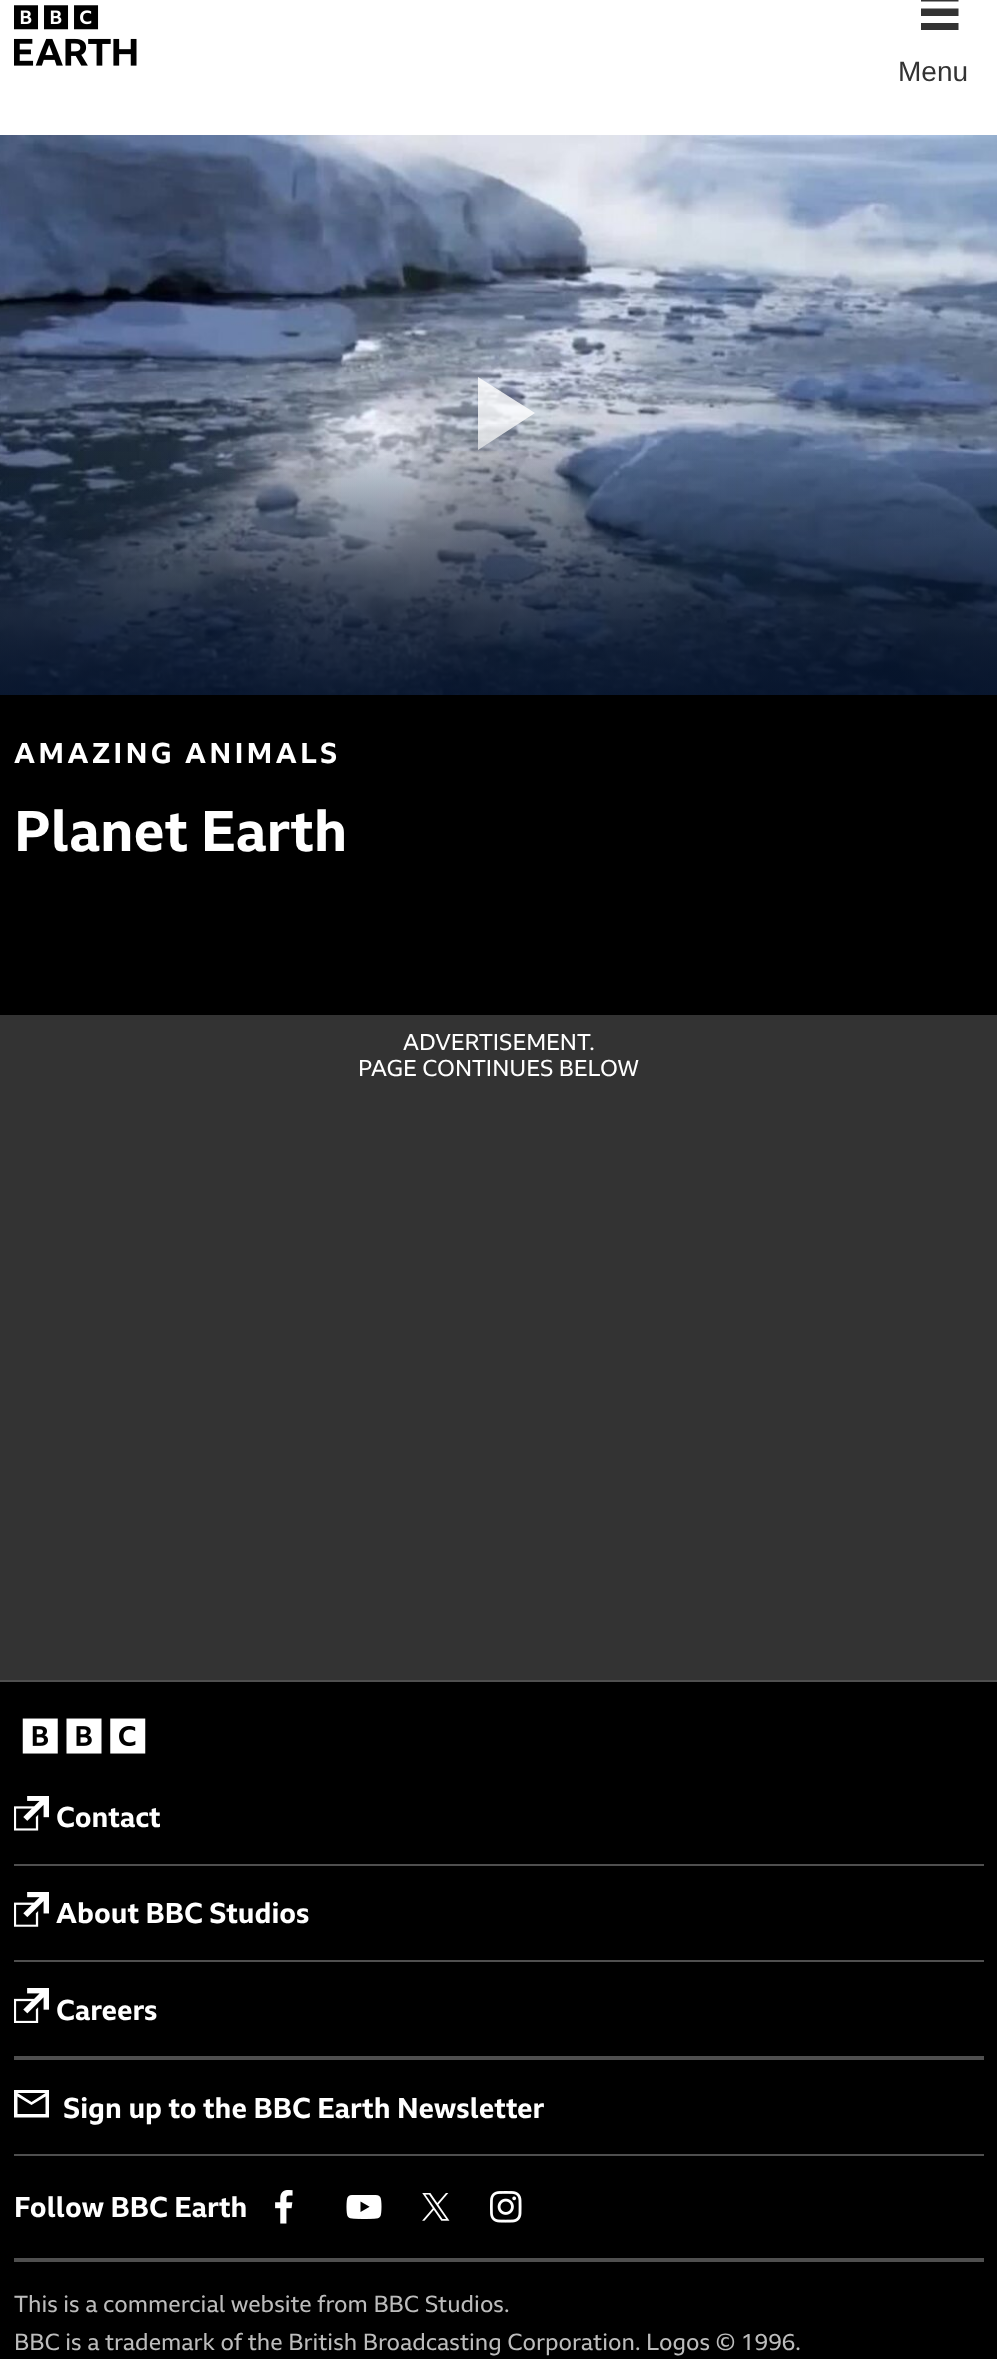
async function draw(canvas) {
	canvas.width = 997;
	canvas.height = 2359;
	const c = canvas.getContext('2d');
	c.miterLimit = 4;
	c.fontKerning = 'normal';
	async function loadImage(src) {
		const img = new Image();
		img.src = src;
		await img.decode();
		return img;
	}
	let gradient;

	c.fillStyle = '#fff';
	c.fillRect(0, 0, 997, 2359);
	c.drawImage(await loadImage('img1.png'), 14, 5, 123, 61);
	c.fillStyle = '#333';
	c.beginPath();
	c.moveTo(921, 1.5);
	c.lineTo(958.5, 1.5);
	c.lineTo(958.5, -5.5);
	c.lineTo(921, -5.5);
	c.closePath();
	c.moveTo(921, 30);
	c.lineTo(958.5, 30);
	c.lineTo(958.5, 23);
	c.lineTo(921, 23);
	c.closePath();
	c.moveTo(921, 16);
	c.lineTo(958.5, 16);
	c.lineTo(958.5, 8.5);
	c.lineTo(921, 8.5);
	c.closePath();
	c.fill();
	c.font = '28px Liberation Sans';
	c.fillText('Menu', 898, 81);
	c.fillStyle = '#000';
	c.fillRect(0, 695, 997, 320);
	c.drawImage(await loadImage('img2.png'), 0, 135, 997, 560);
	c.fillStyle = '#ffffffcc';
	c.beginPath();
	c.moveTo(478, 377);
	c.lineTo(478, 450);
	c.lineTo(535, 413);
	c.closePath();
	c.fill();
	gradient = c.createLinearGradient(499, 415, 499, 695);
	gradient.addColorStop(0, '#03112a00');
	gradient.addColorStop(1, '#03112ab3');
	c.fillStyle = gradient;
	c.fillRect(0, 424, 997, 271);
	gradient = c.createLinearGradient(499, 432, 499, 695);
	gradient.addColorStop(0, '#03112a00');
	gradient.addColorStop(1, '#03112ab3');
	c.fillStyle = gradient;
	c.fillRect(0, 440, 997, 255);
	c.letterSpacing = '3.5px';
	c.font = 'bold 28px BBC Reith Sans';
	c.fillStyle = '#fff';
	c.fillText('AMAZING ANIMALS', 14, 763);
	c.letterSpacing = '0px';
	c.font = 'bold 56px BBC Reith Sans';
	c.fillText('Planet Earth', 14, 851);
	c.fillStyle = '#333';
	c.fillRect(0, 1015, 997, 665);
	c.font = '22.4px BBC Reith Sans';
	c.fillStyle = '#fff';
	c.fillText('ADVERTISEMENT.', 403, 1050);
	c.fillText('PAGE CONTINUES BELOW', 358, 1076);
	for (const [x, y, w, h, color] of [
		[0, 1682, 997, 677, '#000'],
		[0, 1680, 997, 2, '#4f4f4f'],
		[14, 2056, 970, 4, '#4f4f4f'],
	]) {
		c.fillStyle = color;
		c.fillRect(x, y, w, h);
	}
	c.drawImage(await loadImage('img3.png'), 22, 1718, 124, 36);
	c.drawImage(await loadImage('img4.png'), 14, 1796, 35, 35);
	c.font = 'bold 28px BBC Reith Sans';
	c.fillStyle = '#fff';
	c.fillText('Contact', 56, 1827);
	c.fillStyle = '#4f4f4f';
	c.fillRect(14, 1864, 970, 2);
	c.drawImage(await loadImage('img5.png'), 14, 1892, 35, 35);
	c.fillStyle = '#fff';
	c.fillText('About BBC Studios', 56, 1923);
	c.fillStyle = '#4f4f4f';
	c.fillRect(14, 1960, 970, 2);
	c.drawImage(await loadImage('img6.png'), 14, 1988, 35, 35);
	c.fillStyle = '#fff';
	c.fillText('Careers', 56, 2020);
	c.save();
	c.beginPath();
	c.rect(14, 2090, 35, 28);
	c.clip();
	c.beginPath();
	c.moveTo(49, 2089.5);
	c.lineTo(14, 2089.5);
	c.lineTo(14, 2117.5);
	c.lineTo(49, 2117.5);
	c.closePath();
	c.moveTo(45.5, 2114);
	c.lineTo(17.5, 2114);
	c.lineTo(17.5, 2096.5);
	c.lineTo(31.5, 2105);
	c.lineTo(45.5, 2096.5);
	c.closePath();
	c.moveTo(31.5, 2102);
	c.lineTo(17.5, 2093);
	c.lineTo(45.5, 2093);
	c.closePath();
	c.fill();
	c.restore();
	c.fillText('Sign up to the BBC Earth Newsletter', 63, 2118);
	c.fillStyle = '#4f4f4f';
	c.fillRect(14, 2154, 970, 2);
	c.fillStyle = '#fff';
	c.fillText('Follow BBC Earth', 14, 2217);
	c.drawImage(await loadImage('img7.png'), 275, 2190, 18, 34);
	c.drawImage(await loadImage('img8.png'), 346, 2195, 36, 24);
	c.drawImage(await loadImage('img9.png'), 422, 2193, 28, 28);
	c.drawImage(await loadImage('img10.png'), 490, 2191, 32, 32);
	c.fillStyle = '#4f4f4f';
	c.fillRect(14, 2258, 970, 4);
	c.font = '22.75px BBC Reith Sans';
	c.fillStyle = '#bcbcbc';
	c.fillText('This is a commercial website from BBC Studios.', 14, 2312);
	c.fillText('BBC is a trademark of the British Broadcasting Corporation. Logos © 1996.', 14, 2350);
}

draw(document.querySelector('canvas'));
